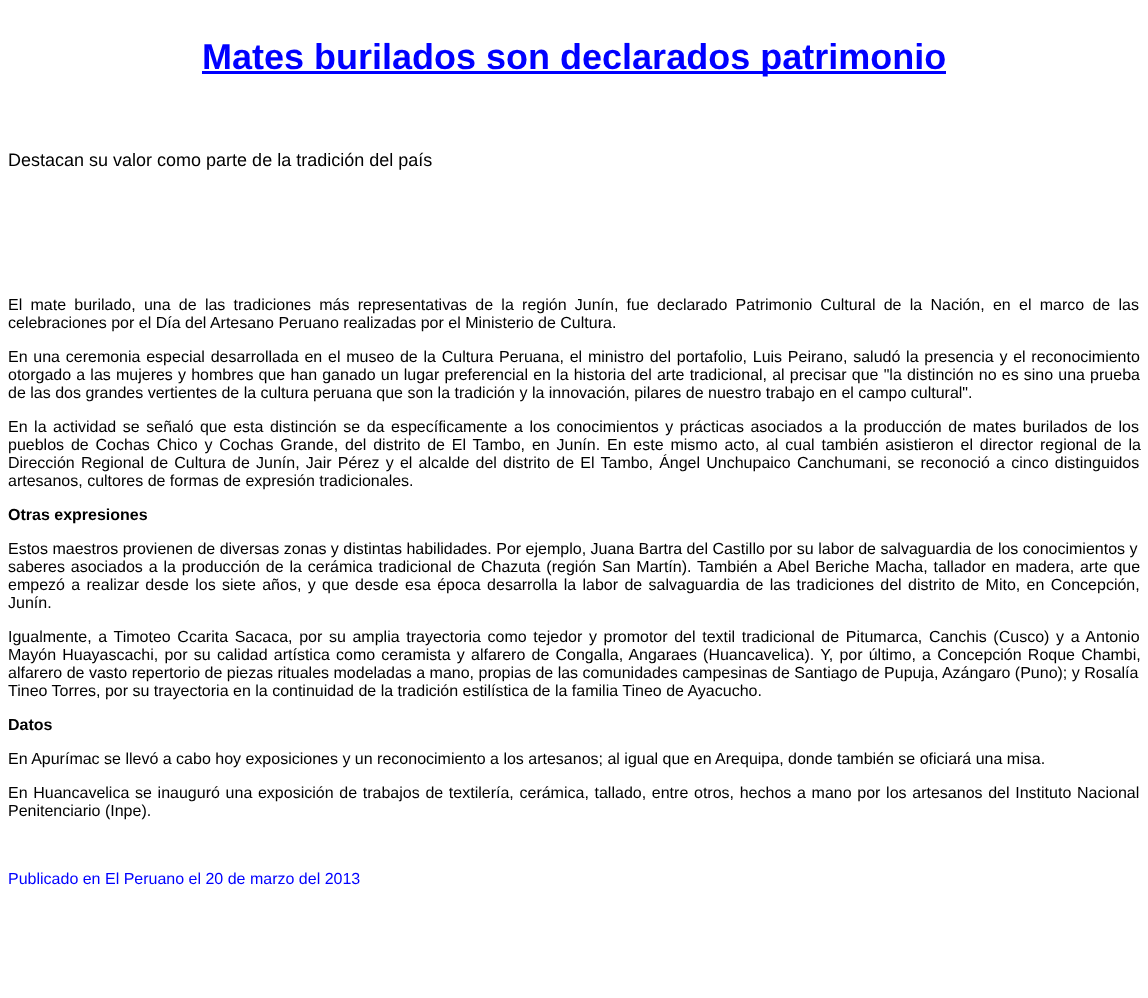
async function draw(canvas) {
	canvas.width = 1148;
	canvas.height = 998;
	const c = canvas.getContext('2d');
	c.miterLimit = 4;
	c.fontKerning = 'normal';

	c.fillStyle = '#fff';
	c.fillRect(0, 0, 1148, 998);
	c.fillStyle = '#00f';
	c.fillRect(202, 71, 744, 3);
	c.font = 'bold 36px Liberation Sans';
	c.fillText('Mates burilados son declarados patrimonio', 202, 69);
	c.font = '18px Liberation Sans';
	c.fillStyle = '#000';
	c.fillText('Destacan su valor como parte de la tradición del país', 8, 166);
	c.wordSpacing = '3.8px';
	c.font = '16px Liberation Sans';
	c.fillText('El mate burilado, una de las tradiciones más representativas de la región Junín, fue declarado Patrimonio Cultural de la Nación, en el marco de las', 8, 310);
	c.wordSpacing = '0px';
	c.fillText('celebraciones por el Día del Artesano Peruano realizadas por el Ministerio de Cultura.', 8, 328);
	c.wordSpacing = '1.3px';
	c.fillText('En una ceremonia especial desarrollada en el museo de la Cultura Peruana, el ministro del portafolio, Luis Peirano, saludó la presencia y el reconocimiento', 8, 362);
	c.wordSpacing = '0.7px';
	c.fillText('otorgado a las mujeres y hombres que han ganado un lugar preferencial en la historia del arte tradicional, al precisar que "la distinción no es sino una prueba', 8, 380);
	c.wordSpacing = '0px';
	c.fillText('de las dos grandes vertientes de la cultura peruana que son la tradición y la innovación, pilares de nuestro trabajo en el campo cultural".', 8, 398);
	c.wordSpacing = '2.1px';
	c.fillText('En la actividad se señaló que esta distinción se da específicamente a los conocimientos y prácticas asociados a la producción de mates burilados de los', 8, 432);
	c.wordSpacing = '2.4px';
	c.fillText('pueblos de Cochas Chico y Cochas Grande, del distrito de El Tambo, en Junín. En este mismo acto, al cual también asistieron el director regional de la', 8, 450);
	c.wordSpacing = '1.75px';
	c.fillText('Dirección Regional de Cultura de Junín, Jair Pérez y el alcalde del distrito de El Tambo, Ángel Unchupaico Canchumani, se reconoció a cinco distinguidos', 8, 468);
	c.wordSpacing = '0px';
	c.fillText('artesanos, cultores de formas de expresión tradicionales.', 8, 486);
	c.font = 'bold 16px Liberation Sans';
	c.fillText('Otras expresiones', 8, 520);
	c.font = '16px Liberation Sans';
	c.fillText('Estos maestros provienen de diversas zonas y distintas habilidades. Por ejemplo, Juana Bartra del Castillo por su labor de salvaguardia de los conocimientos y', 8, 554);
	c.wordSpacing = '1.4px';
	c.fillText('saberes asociados a la producción de la cerámica tradicional de Chazuta (región San Martín). También a Abel Beriche Macha, tallador en madera, arte que', 8, 572);
	c.wordSpacing = '1.9px';
	c.fillText('empezó a realizar desde los siete años, y que desde esa época desarrolla la labor de salvaguardia de las tradiciones del distrito de Mito, en Concepción,', 8, 590);
	c.wordSpacing = '0px';
	c.fillText('Junín.', 8, 608);
	c.wordSpacing = '2.2px';
	c.fillText('Igualmente, a Timoteo Ccarita Sacaca, por su amplia trayectoria como tejedor y promotor del textil tradicional de Pitumarca, Canchis (Cusco) y a Antonio', 8, 642);
	c.wordSpacing = '1.75px';
	c.fillText('Mayón Huayascachi, por su calidad artística como ceramista y alfarero de Congalla, Angaraes (Huancavelica). Y, por último, a Concepción Roque Chambi,', 8, 660);
	c.wordSpacing = '0px';
	c.fillText('alfarero de vasto repertorio de piezas rituales modeladas a mano, propias de las comunidades campesinas de Santiago de Pupuja, Azángaro (Puno); y Rosalía', 8, 678);
	c.fillText('Tineo Torres, por su trayectoria en la continuidad de la tradición estilística de la familia Tineo de Ayacucho.', 8, 696);
	c.font = 'bold 16px Liberation Sans';
	c.fillText('Datos', 8, 730);
	c.font = '16px Liberation Sans';
	c.fillText('En Apurímac se llevó a cabo hoy exposiciones y un reconocimiento a los artesanos; al igual que en Arequipa, donde también se oficiará una misa.', 8, 764);
	c.wordSpacing = '1.25px';
	c.fillText('En Huancavelica se inauguró una exposición de trabajos de textilería, cerámica, tallado, entre otros, hechos a mano por los artesanos del Instituto Nacional', 8, 798);
	c.wordSpacing = '0px';
	c.fillText('Penitenciario (Inpe).', 8, 816);
	c.fillStyle = '#00f';
	c.fillText('Publicado en El Peruano el 20 de marzo del 2013', 8, 884);
}

draw(document.querySelector('canvas'));
